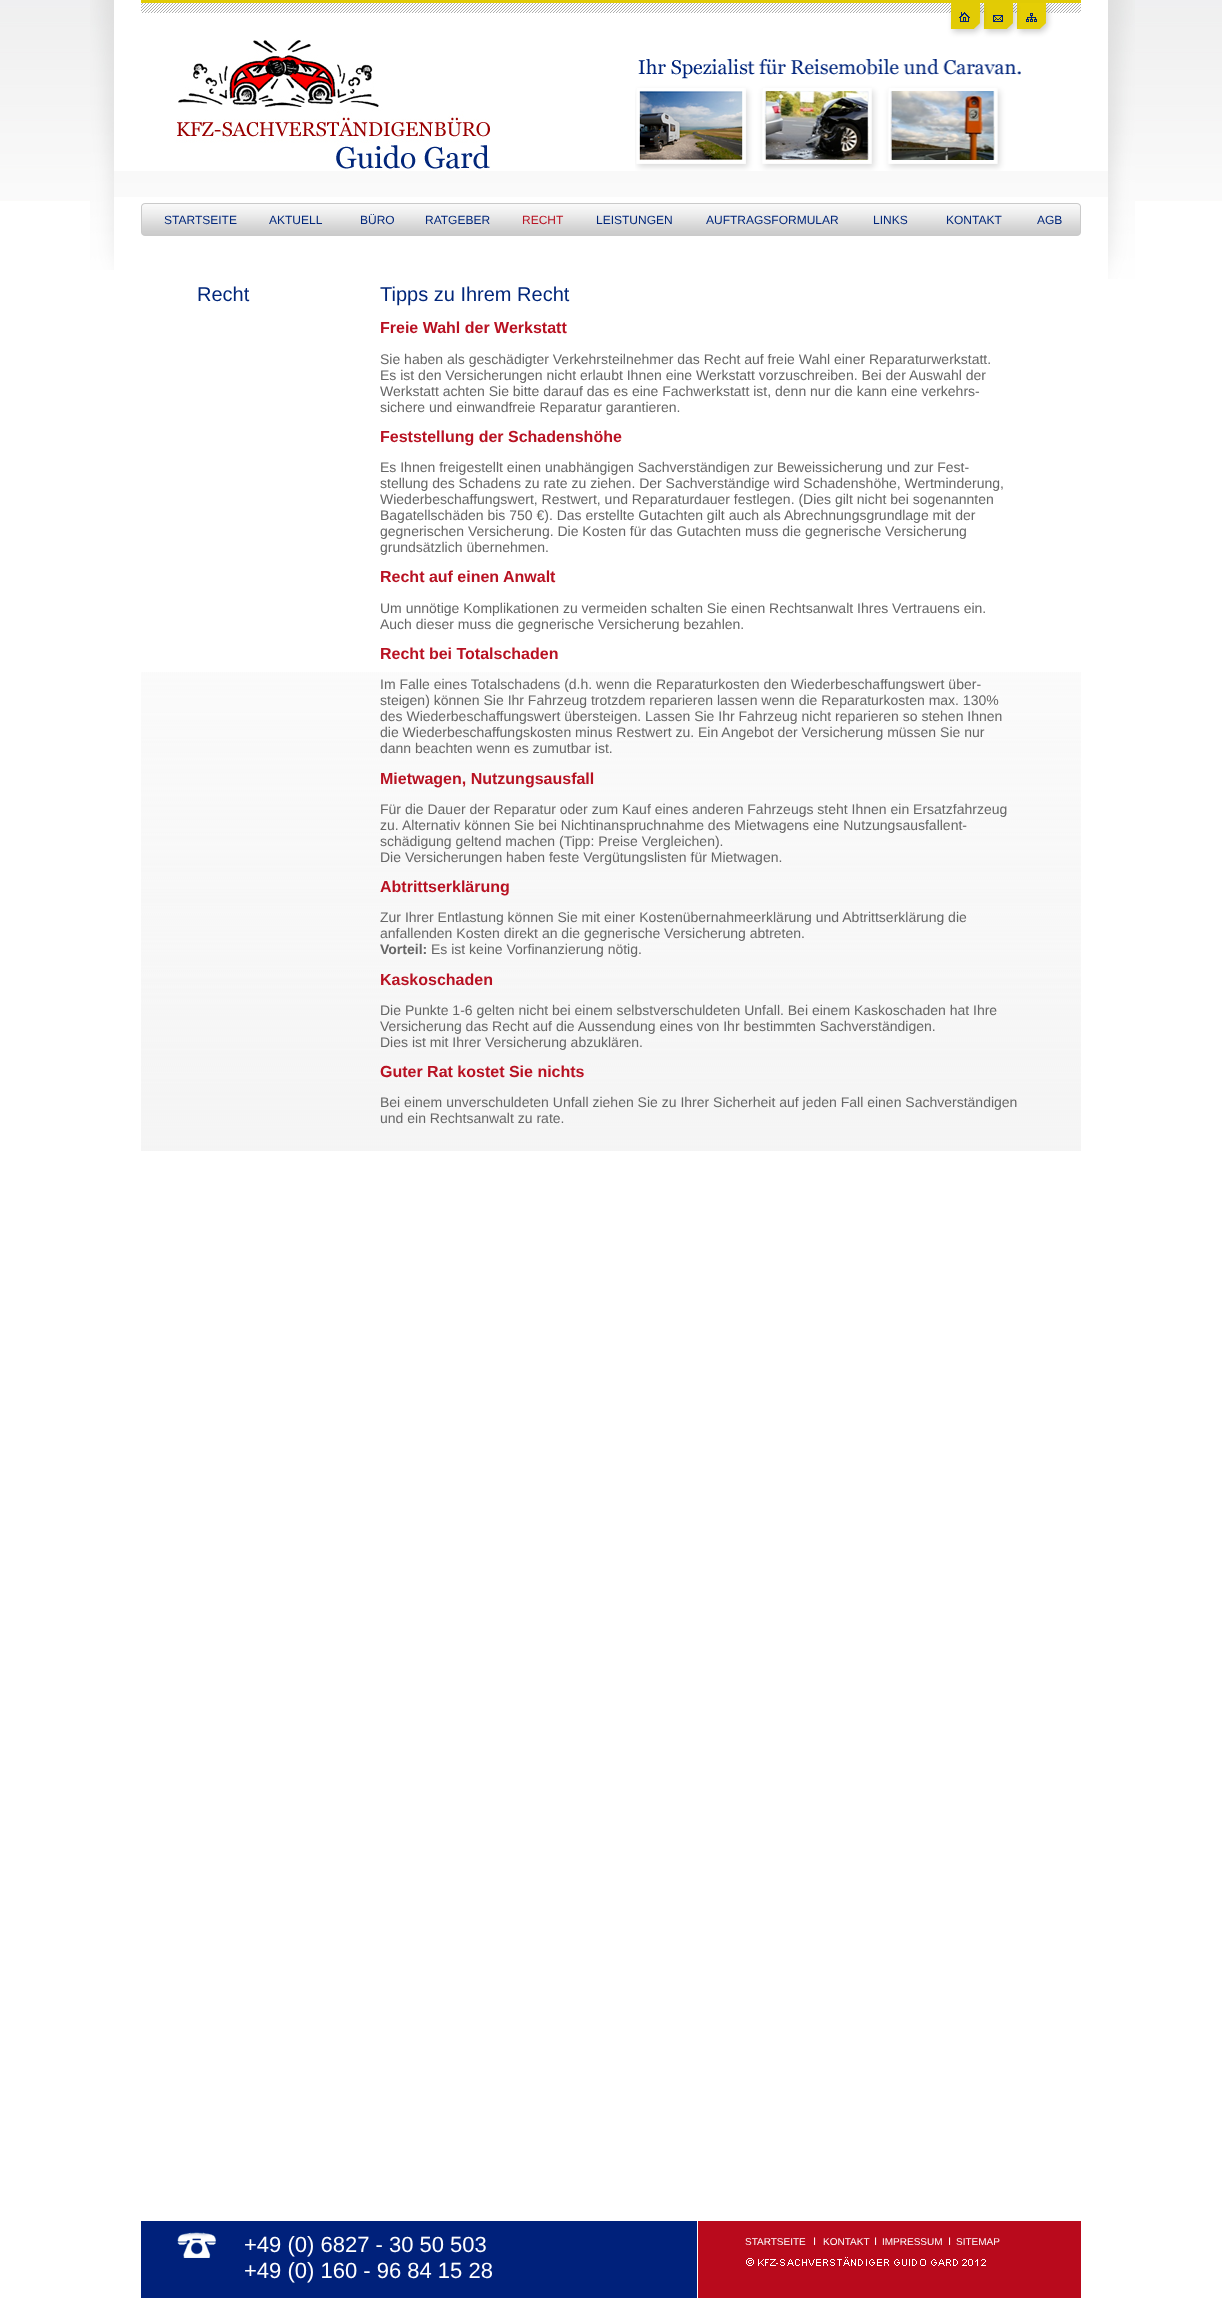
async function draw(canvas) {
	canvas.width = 1222;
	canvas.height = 2298;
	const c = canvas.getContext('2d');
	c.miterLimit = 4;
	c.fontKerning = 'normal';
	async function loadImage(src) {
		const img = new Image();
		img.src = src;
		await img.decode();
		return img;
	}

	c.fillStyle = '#fff';
	c.fillRect(0, 0, 1222, 2298);
	c.drawImage(await loadImage('img1.png'), 0, 0, 1222, 201);
	c.drawImage(await loadImage('img2.png'), 90, 0, 24, 270);
	c.drawImage(await loadImage('img3.png'), 1108, 0, 27, 279);
	c.drawImage(await loadImage('img4.png'), 114, 0, 994, 39);
	c.drawImage(await loadImage('img5.png'), 959, 12, 11, 10);
	c.drawImage(await loadImage('img6.png'), 993, 15, 10, 7);
	c.drawImage(await loadImage('img7.png'), 1026, 13, 11, 9);
	c.fillRect(114, 39, 62, 132);
	c.drawImage(await loadImage('img8.png'), 176, 39, 315, 132);
	c.fillRect(491, 39, 144, 132);
	c.drawImage(await loadImage('img9.png'), 635, 39, 386, 132);
	c.fillRect(1021, 39, 87, 132);
	c.drawImage(await loadImage('img10.png'), 114, 197, 994, 39);
	c.font = '12px Liberation Sans';
	c.fillStyle = '#01267a';
	for (const [text, x, y] of [
		['STARTSEITE', 164, 224],
		['AKTUELL', 269, 224],
		['BÜRO', 360, 224],
		['RATGEBER', 425, 224],
	]) {
		c.fillText(text, x, y);
	}
	c.fillStyle = '#b81222';
	c.fillText('RECHT', 522, 224);
	c.fillStyle = '#01267a';
	for (const [text, x, y] of [
		['LEISTUNGEN', 596, 224],
		['AUFTRAGSFORMULAR', 706, 224],
		['LINKS', 873, 224],
		['KONTAKT', 946, 224],
		['AGB', 1037, 224],
	]) {
		c.fillText(text, x, y);
	}
	c.drawImage(await loadImage('img11.png'), 141, 672, 940, 479);
	c.font = '20px Liberation Sans';
	c.fillText('Recht', 197, 301);
	c.fillText('Tipps zu Ihrem Recht', 380, 301);
	c.font = 'bold 16px Liberation Sans';
	c.fillStyle = '#b81222';
	c.fillText('Freie Wahl der Werkstatt', 380, 333);
	c.font = '14px Liberation Sans';
	c.fillStyle = '#666';
	for (const [text, x, y] of [
		['Sie haben als geschädigter Verkehrsteilnehmer das Recht auf freie Wahl einer Reparaturwerkstatt.', 380, 364],
		['Es ist den Versicherungen nicht erlaubt Ihnen eine Werkstatt vorzuschreiben. Bei der Auswahl der', 380, 380],
		['Werkstatt achten Sie bitte darauf das es eine Fachwerkstatt ist, denn nur die kann eine verkehrs-', 380, 396],
		['sichere und einwandfreie Reparatur garantieren.', 380, 412],
	]) {
		c.fillText(text, x, y);
	}
	c.font = 'bold 16px Liberation Sans';
	c.fillStyle = '#b81222';
	c.fillText('Feststellung der Schadenshöhe', 380, 442);
	c.font = '14px Liberation Sans';
	c.fillStyle = '#666';
	for (const [text, x, y] of [
		['Es Ihnen freigestellt einen unabhängigen Sachverständigen zur Beweissicherung und zur Fest-', 380, 472],
		['stellung des Schadens zu rate zu ziehen. Der Sachverständige wird Schadenshöhe, Wertminderung,', 380, 488],
		['Wiederbeschaffungswert, Restwert, und Reparaturdauer festlegen. (Dies gilt nicht bei sogenannten', 380, 504],
		['Bagatellschäden bis 750 €). Das erstellte Gutachten gilt auch als Abrechnungsgrundlage mit der', 380, 520],
		['gegnerischen Versicherung. Die Kosten für das Gutachten muss die gegnerische Versicherung', 380, 536],
		['grundsätzlich übernehmen.', 380, 552],
	]) {
		c.fillText(text, x, y);
	}
	c.font = 'bold 16px Liberation Sans';
	c.fillStyle = '#b81222';
	c.fillText('Recht auf einen Anwalt', 380, 582);
	c.font = '14px Liberation Sans';
	c.fillStyle = '#666';
	c.fillText('Um unnötige Komplikationen zu vermeiden schalten Sie einen Rechtsanwalt Ihres Vertrauens ein.', 380, 613);
	c.fillText('Auch dieser muss die gegnerische Versicherung bezahlen.', 380, 629);
	c.font = 'bold 16px Liberation Sans';
	c.fillStyle = '#b81222';
	c.fillText('Recht bei Totalschaden', 380, 659);
	c.font = '14px Liberation Sans';
	c.fillStyle = '#666';
	for (const [text, x, y] of [
		['Im Falle eines Totalschadens (d.h. wenn die Reparaturkosten den Wiederbeschaffungswert über-', 380, 689],
		['steigen) können Sie Ihr Fahrzeug trotzdem reparieren lassen wenn die Reparaturkosten max. 130%', 380, 705],
		['des Wiederbeschaffungswert übersteigen. Lassen Sie Ihr Fahrzeug nicht reparieren so stehen Ihnen', 380, 721],
		['die Wiederbeschaffungskosten minus Restwert zu. Ein Angebot der Versicherung müssen Sie nur', 380, 737],
		['dann beachten wenn es zumutbar ist.', 380, 753],
	]) {
		c.fillText(text, x, y);
	}
	c.font = 'bold 16px Liberation Sans';
	c.fillStyle = '#b81222';
	c.fillText('Mietwagen, Nutzungsausfall', 380, 784);
	c.font = '14px Liberation Sans';
	c.fillStyle = '#666';
	for (const [text, x, y] of [
		['Für die Dauer der Reparatur oder zum Kauf eines anderen Fahrzeugs steht Ihnen ein Ersatzfahrzeug', 380, 814],
		['zu.', 380, 830],
		['Alternativ können Sie bei Nichtinanspruchnahme des Mietwagens eine Nutzungsausfallent-', 402, 830],
		['schädigung geltend machen (Tipp: Preise Vergleichen).', 380, 846],
		['Die Versicherungen haben feste Vergütungslisten für Mietwagen.', 380, 862],
	]) {
		c.fillText(text, x, y);
	}
	c.font = 'bold 16px Liberation Sans';
	c.fillStyle = '#b81222';
	c.fillText('Abtrittserklärung', 380, 892);
	c.font = '14px Liberation Sans';
	c.fillStyle = '#666';
	c.fillText('Zur Ihrer Entlastung können Sie mit einer Kostenübernahmeerklärung und Abtrittserklärung die', 380, 922);
	c.fillText('anfallenden Kosten direkt an die gegnerische Versicherung abtreten.', 380, 938);
	c.font = 'bold 14px Liberation Sans';
	c.fillText('Vorteil:', 380, 954);
	c.font = '14px Liberation Sans';
	c.fillText('Es ist keine Vorfinanzierung nötig.', 431, 954);
	c.font = 'bold 16px Liberation Sans';
	c.fillStyle = '#b81222';
	c.fillText('Kaskoschaden', 380, 985);
	c.font = '14px Liberation Sans';
	c.fillStyle = '#666';
	for (const [text, x, y] of [
		['Die Punkte 1-6 gelten nicht bei einem selbstverschuldeten Unfall. Bei einem Kaskoschaden hat Ihre', 380, 1015],
		['Versicherung das Recht auf die Aussendung eines von Ihr bestimmten Sachverständigen.', 380, 1031],
		['Dies ist mit Ihrer Versicherung abzuklären.', 380, 1047],
	]) {
		c.fillText(text, x, y);
	}
	c.font = 'bold 16px Liberation Sans';
	c.fillStyle = '#b81222';
	c.fillText('Guter Rat kostet Sie nichts', 380, 1077);
	c.font = '14px Liberation Sans';
	c.fillStyle = '#666';
	c.fillText('Bei einem unverschuldeten Unfall ziehen Sie zu Ihrer Sicherheit auf jeden Fall einen Sachverständigen', 380, 1107);
	c.fillText('und ein Rechtsanwalt zu rate.', 380, 1123);
	c.drawImage(await loadImage('img12.png'), 141, 2221, 940, 77);
	c.font = '22px Liberation Sans';
	c.fillStyle = '#fff';
	c.fillText('+49 (0) 6827 - 30 50 503', 244, 2252);
	c.fillText('+49 (0) 160 - 96 84 15 28', 244, 2278);
	c.font = '10px Liberation Sans';
	c.fillText('STARTSEITE', 745, 2245);
	c.font = '11px Liberation Sans';
	c.fillText('I', 813, 2245);
	c.font = '10px Liberation Sans';
	c.fillText('KONTAKT', 823, 2245);
	c.font = '11px Liberation Sans';
	c.fillText('I', 874, 2245);
	c.font = '10px Liberation Sans';
	c.fillText('IMPRESSUM', 882, 2245);
	c.font = '11px Liberation Sans';
	c.fillText('I', 948, 2245);
	c.font = '10px Liberation Sans';
	c.fillText('SITEMAP', 956, 2245);
}

draw(document.querySelector('canvas'));
